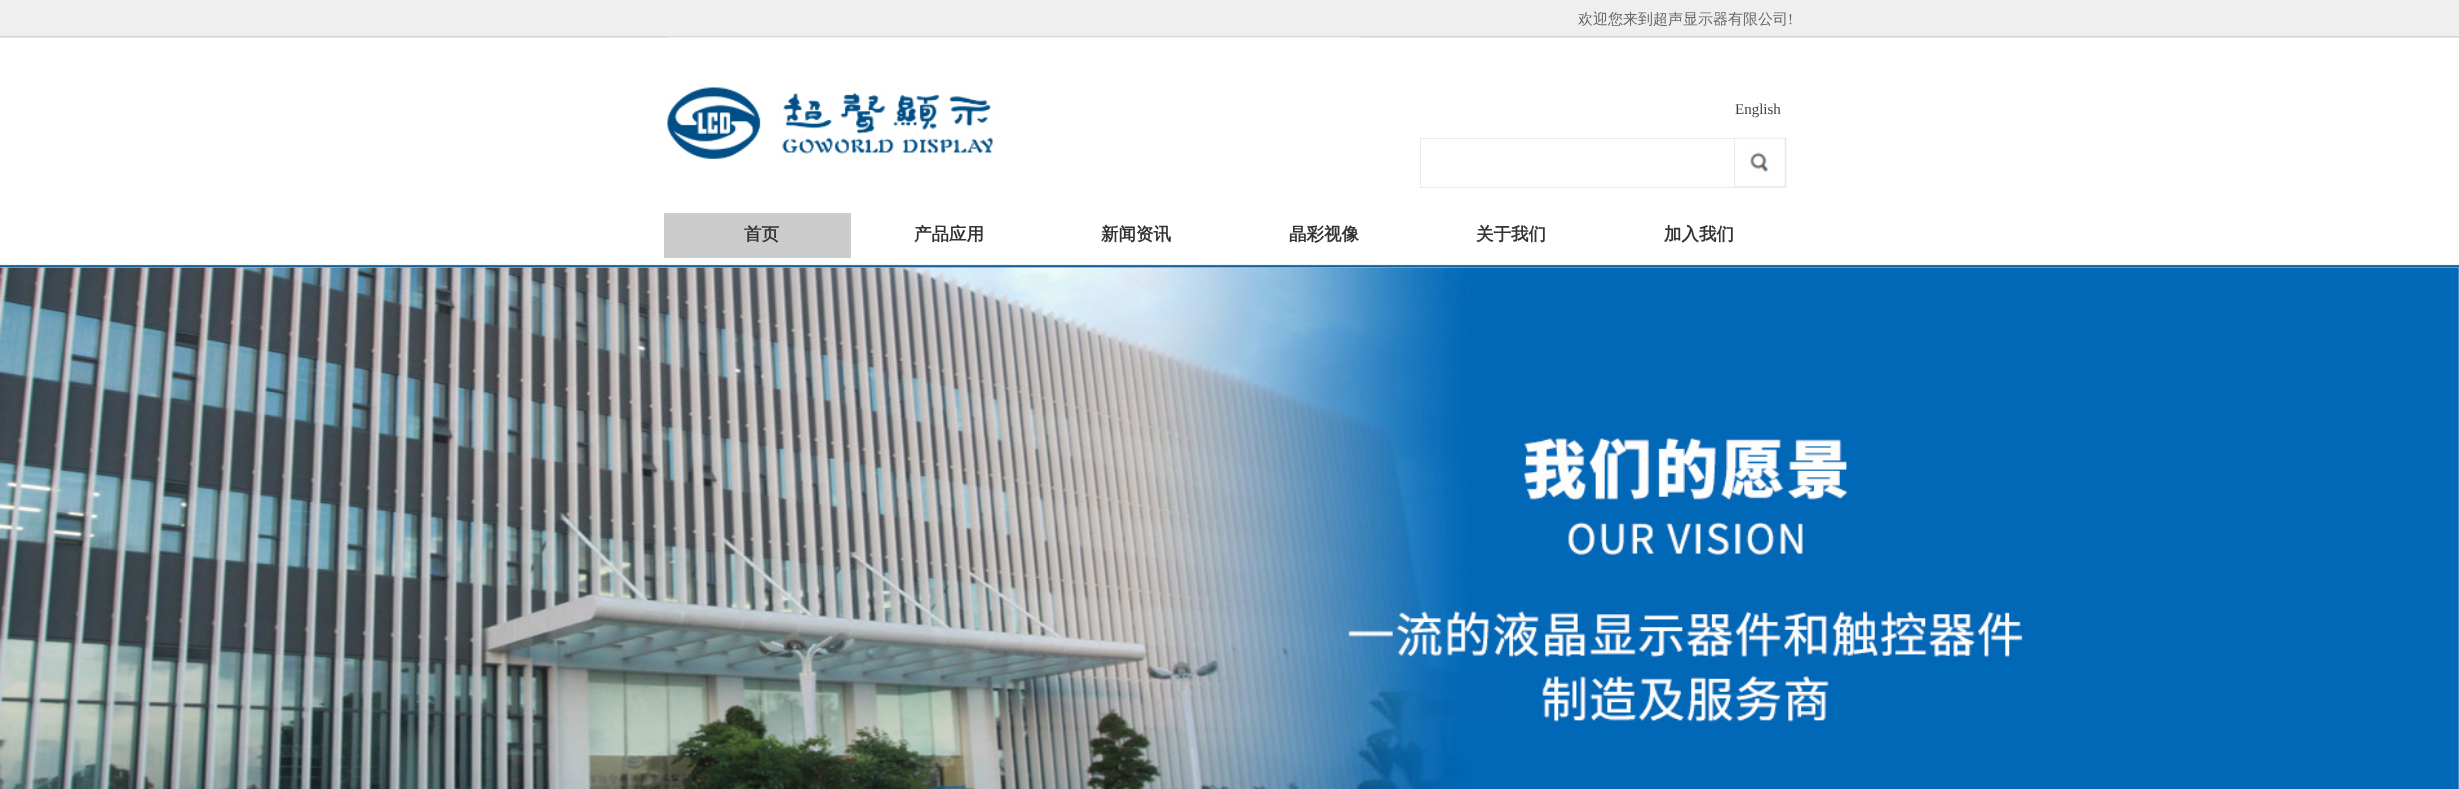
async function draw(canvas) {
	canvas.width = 2459;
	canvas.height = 789;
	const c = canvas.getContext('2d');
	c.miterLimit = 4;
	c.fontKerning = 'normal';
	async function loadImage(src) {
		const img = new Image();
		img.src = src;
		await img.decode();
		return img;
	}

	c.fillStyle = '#fff';
	c.fillRect(0, 0, 2459, 789);
	c.drawImage(await loadImage('img1.png'), 0, 0, 2459, 38);
	c.font = '500 15px WenQuanYi Zen Hei';
	c.fillStyle = '#686868';
	c.fillText('欢迎您来到超声显示器有限公司', 1578, 24);
	c.font = '15px Liberation Serif';
	c.fillText('!', 1788, 24);
	c.drawImage(await loadImage('img2.png'), 667, 37, 693, 122);
	c.fillStyle = '#404242';
	c.fillText('English', 1735, 114);
	c.strokeStyle = '#e9eaeb';
	c.strokeRect(1420.5, 138.5, 314, 49);
	c.fillStyle = '#efefef';
	c.fillRect(1735, 187, 51, 1);
	c.drawImage(await loadImage('img3.png'), 1735, 137, 52, 51);
	c.drawImage(await loadImage('img4.png'), 0, 264, 2459, 4);
	c.fillStyle = '#ccc';
	c.fillRect(664, 213, 187, 45);
	c.font = 'bold 17.5px WenQuanYi Zen Hei';
	c.fillStyle = '#333';
	for (const [text, x, y] of [
		['首页', 744, 240],
		['产品应用', 914, 240],
		['新闻资讯', 1101, 240],
		['晶彩视像', 1289, 240],
		['关于我们', 1476, 240],
		['加入我们', 1664, 240],
	]) {
		c.fillText(text, x, y);
	}
	c.drawImage(await loadImage('img5.png'), 0, 267, 2459, 522);
}

draw(document.querySelector('canvas'));
